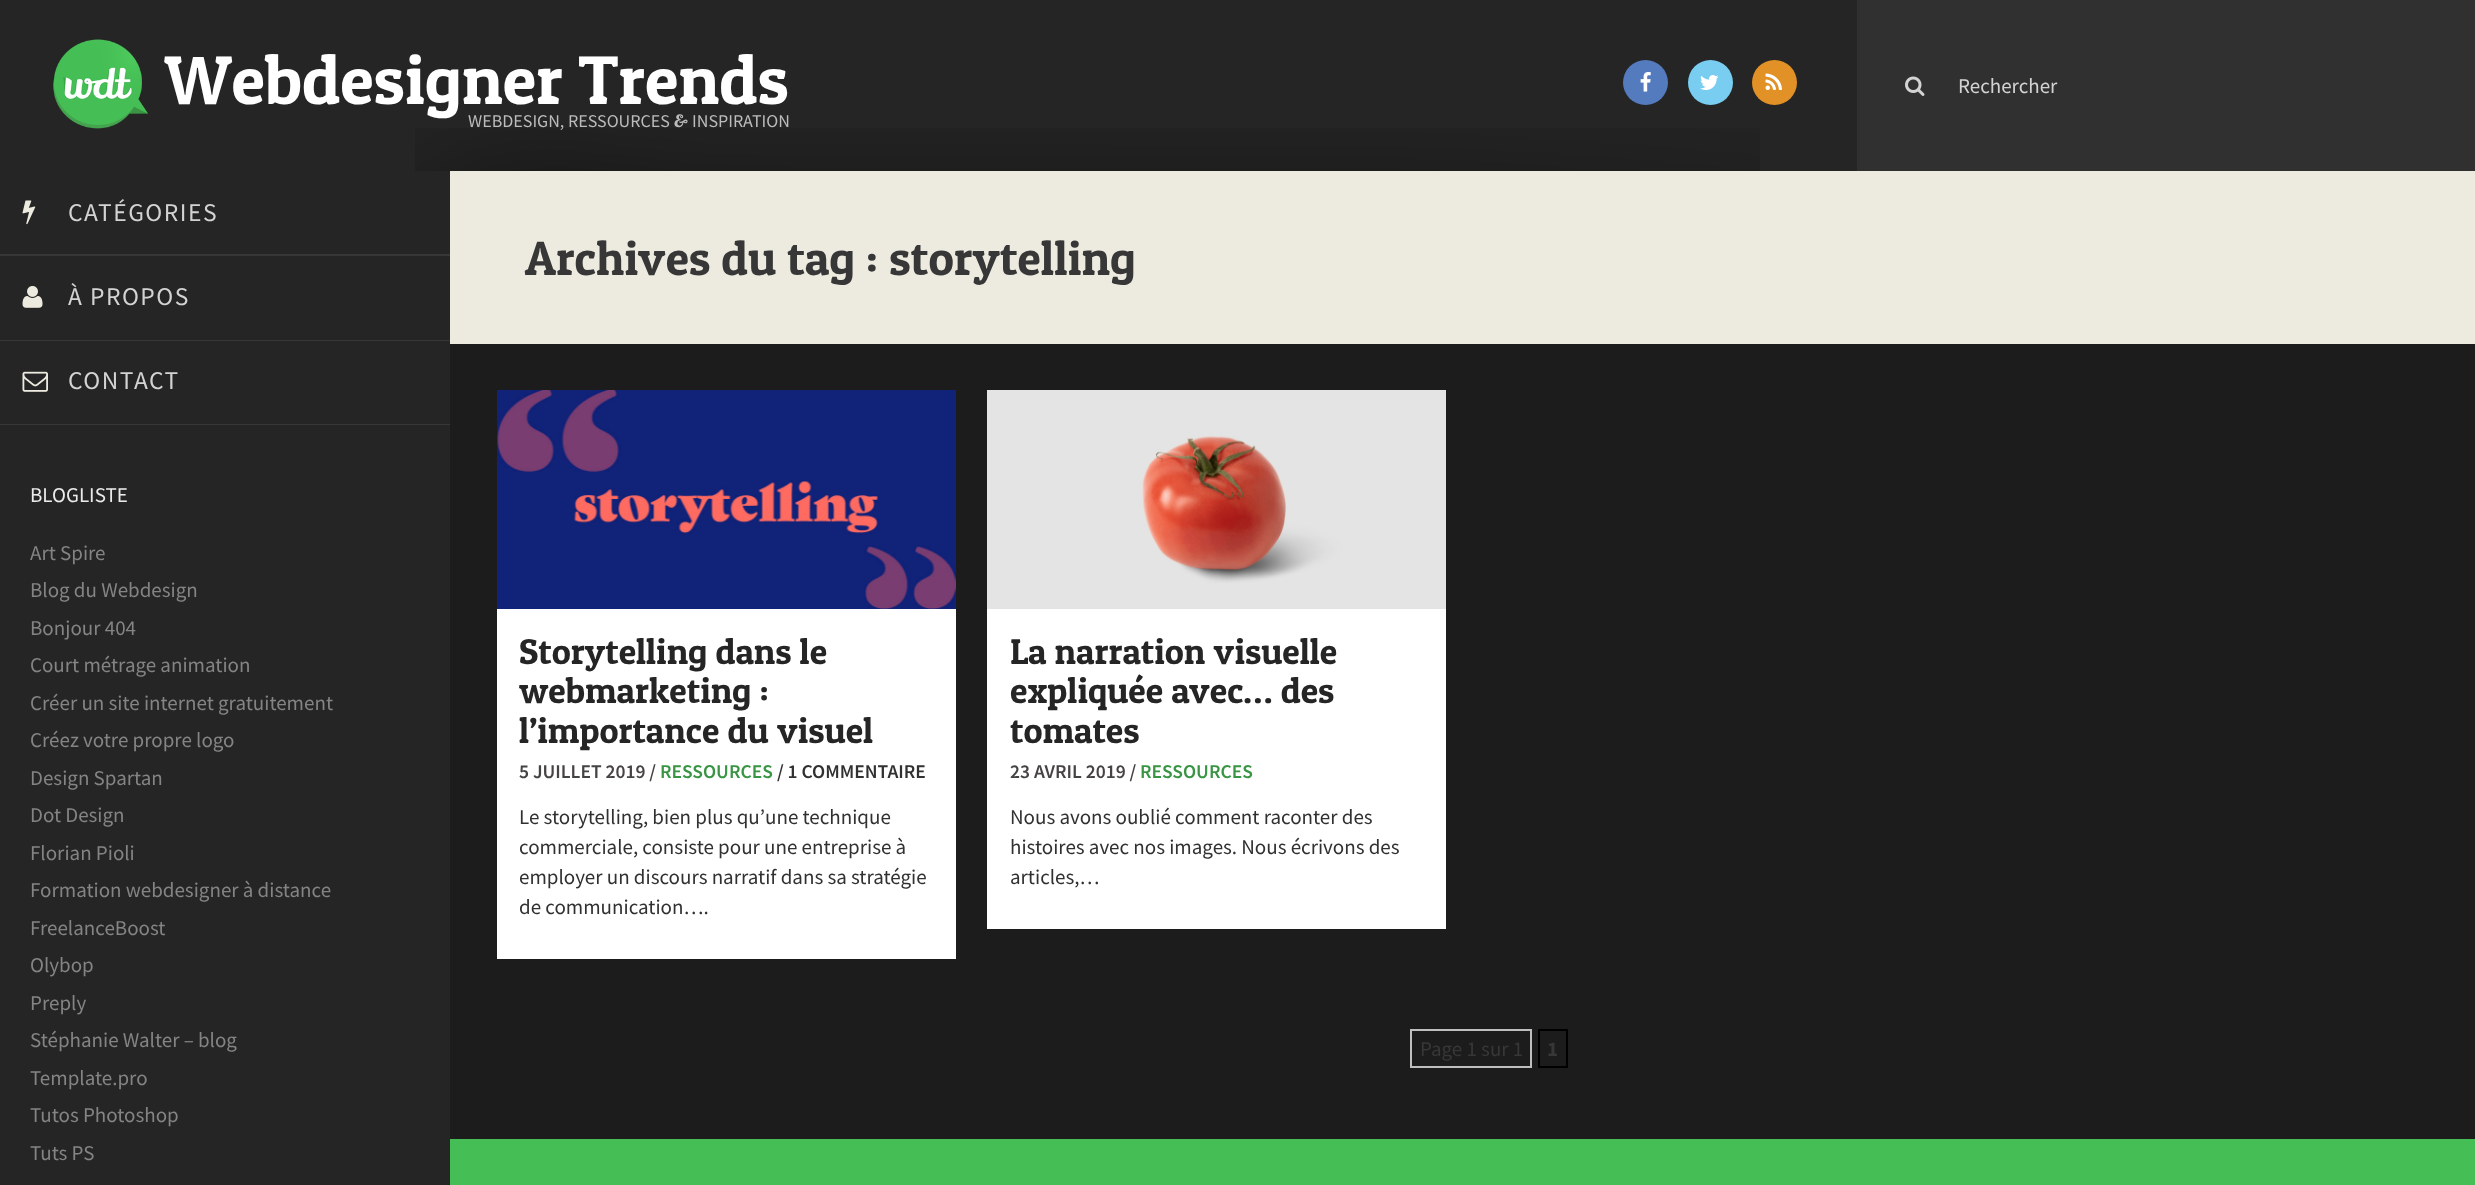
async function draw(canvas) {
	canvas.width = 2475;
	canvas.height = 1185;
	const c = canvas.getContext('2d');
	c.miterLimit = 4;
	c.fontKerning = 'normal';
	async function loadImage(src) {
		const img = new Image();
		img.src = src;
		await img.decode();
		return img;
	}

	c.fillStyle = '#252525';
	c.fillRect(0, 0, 2475, 1185);
	c.drawImage(await loadImage('img1.png'), 415, 128, 1345, 43);
	c.drawImage(await loadImage('img2.png'), 53, 39, 95, 90);
	c.font = '69px Patua One';
	c.fillStyle = '#fff';
	c.fillText('Webdesigner Trends', 164, 104);
	c.font = '18px Source Sans Pro';
	c.fillStyle = '#bcbcbc';
	c.fillText('WEBDESIGN, RESSOURCES', 468, 127);
	c.font = '18px Oleo Script Swash Caps';
	c.fillText('&', 673, 127);
	c.font = '18px Source Sans Pro';
	c.fillText('INSPIRATION', 692, 127);
	c.fillStyle = '#537bbd';
	c.beginPath();
	c.arc(1645.5, 82.5, 22.5, 0, 2 * Math.PI);
	c.fill();
	c.drawImage(await loadImage('img3.png'), 1640, 72, 11, 20);
	c.fillStyle = '#78cdf0';
	c.beginPath();
	c.arc(1710.5, 82.5, 22.5, 0, 2 * Math.PI);
	c.fill();
	c.drawImage(await loadImage('img4.png'), 1700, 75, 19, 15);
	c.fillStyle = '#e19126';
	c.beginPath();
	c.arc(1774.5, 82.5, 22.5, 0, 2 * Math.PI);
	c.fill();
	c.drawImage(await loadImage('img5.png'), 1765, 73, 17, 17);
	c.fillStyle = '#303030';
	c.fillRect(1857, 0, 618, 171);
	c.drawImage(await loadImage('img6.png'), 1905, 76, 20, 20);
	c.font = '21px Source Sans Pro';
	c.fillStyle = '#d3d3d3';
	c.fillText('Rechercher', 1958, 93);
	c.fillStyle = '#373737';
	c.fillRect(0, 254, 450, 2);
	c.drawImage(await loadImage('img7.png'), 22, 200, 14, 25);
	c.letterSpacing = '1.5px';
	c.font = '25.5px Source Sans Pro';
	c.fillStyle = '#d3d3d3';
	c.fillText('CATÉGORIES', 68, 221);
	c.fillStyle = '#373737';
	c.fillRect(0, 340, 450, 1);
	c.drawImage(await loadImage('img8.png'), 22, 286, 21, 22);
	c.fillStyle = '#d3d3d3';
	c.fillText('À PROPOS', 68, 305);
	c.fillStyle = '#373737';
	c.fillRect(0, 424, 450, 1);
	c.drawImage(await loadImage('img9.png'), 22, 371, 26, 21);
	c.fillStyle = '#d3d3d3';
	c.fillText('CONTACT', 68, 389);
	c.letterSpacing = '0px';
	c.font = '21px Source Sans Pro';
	c.fillStyle = '#ebebeb';
	c.fillText('BLOGLISTE', 30, 502);
	c.fillStyle = '#848484';
	for (const [text, x, y] of [
		['Art Spire', 30, 560],
		['Blog du Webdesign', 30, 597],
		['Bonjour 404', 30, 635],
		['Court métrage animation', 30, 672],
		['Créer un site internet gratuitement', 30, 710],
		['Créez votre propre logo', 30, 747],
		['Design Spartan', 30, 785],
		['Dot Design', 30, 822],
		['Florian Pioli', 30, 860],
		['Formation webdesigner à distance', 30, 897],
		['FreelanceBoost', 30, 935],
		['Olybop', 30, 972],
		['Preply', 30, 1010],
		['Stéphanie Walter – blog', 30, 1047],
		['Template.pro', 30, 1085],
		['Tutos Photoshop', 30, 1122],
		['Tuts PS', 30, 1160],
	]) {
		c.fillText(text, x, y);
	}
	c.fillStyle = '#1c1c1c';
	c.fillRect(450, 344, 2025, 795);
	c.fillStyle = '#edeae0';
	c.fillRect(450, 171, 2025, 173);
	c.font = '48px Patua One';
	c.fillStyle = '#373737';
	c.fillText('Archives du tag : storytelling', 525, 275);
	c.fillStyle = '#fff';
	c.fillRect(497, 609, 459, 350);
	c.drawImage(await loadImage('img10.png'), 497, 390, 459, 219);
	c.font = '36px Patua One';
	c.fillStyle = '#252525';
	for (const [text, x, y] of [
		['Storytelling dans le', 519, 664],
		['webmarketing :', 519, 703],
		['l’importance du visuel', 519, 743],
	]) {
		c.fillText(text, x, y);
	}
	c.font = '600 19.5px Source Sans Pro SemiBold';
	c.fillStyle = '#464343';
	c.fillText('5 JUILLET 2019 /', 519, 778);
	c.fillStyle = '#399544';
	c.fillText('RESSOURCES', 660, 778);
	c.fillStyle = '#313131';
	c.fillText('/ 1 COMMENTAIRE', 777, 778);
	c.font = '21px Source Sans Pro';
	for (const [text, x, y] of [
		['Le storytelling, bien plus qu’une technique', 519, 824],
		['commerciale, consiste pour une entreprise à', 519, 854],
		['employer un discours narratif dans sa stratégie', 519, 884],
		['de communication….', 519, 914],
	]) {
		c.fillText(text, x, y);
	}
	c.fillStyle = '#fff';
	c.fillRect(987, 609, 459, 320);
	c.drawImage(await loadImage('img11.png'), 987, 390, 459, 219);
	c.font = '36px Patua One';
	c.fillStyle = '#252525';
	for (const [text, x, y] of [
		['La narration visuelle', 1010, 664],
		['expliquée avec… des', 1010, 703],
		['tomates', 1010, 743],
	]) {
		c.fillText(text, x, y);
	}
	c.font = '600 19.5px Source Sans Pro SemiBold';
	c.fillStyle = '#464343';
	c.fillText('23 AVRIL 2019 /', 1010, 778);
	c.fillStyle = '#399544';
	c.fillText('RESSOURCES', 1140, 778);
	c.font = '21px Source Sans Pro';
	c.fillStyle = '#313131';
	for (const [text, x, y] of [
		['Nous avons oublié comment raconter des', 1010, 824],
		['histoires avec nos images. Nous écrivons des', 1010, 854],
		['articles,…', 1010, 884],
	]) {
		c.fillText(text, x, y);
	}
	c.strokeStyle = '#bfbfbf';
	c.lineWidth = 2;
	c.strokeRect(1411, 1030, 120, 37);
	c.fillStyle = '#373737';
	c.fillText('Page 1 sur 1', 1420, 1056);
	c.strokeStyle = '#000';
	c.strokeRect(1539, 1030, 28, 37);
	c.font = 'bold 21px Source Sans Pro';
	c.fillText('1', 1547, 1056);
	c.fillStyle = '#45bf55';
	c.fillRect(450, 1139, 2025, 46);
}

draw(document.querySelector('canvas'));
